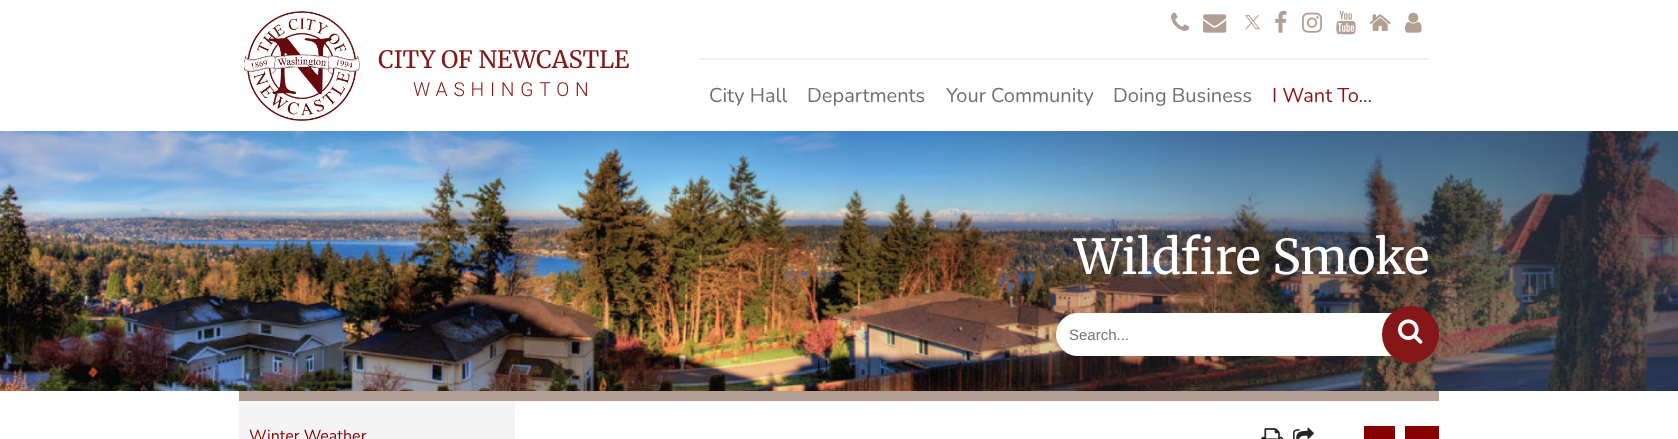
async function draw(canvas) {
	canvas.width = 1678;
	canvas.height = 439;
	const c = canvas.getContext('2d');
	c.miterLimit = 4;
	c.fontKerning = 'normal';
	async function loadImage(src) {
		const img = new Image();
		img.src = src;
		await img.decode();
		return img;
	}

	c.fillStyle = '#fff';
	c.fillRect(0, 0, 1678, 439);
	c.drawImage(await loadImage('img1.png'), 243, 11, 117, 110);
	c.font = '24px Merriweather';
	c.fillStyle = '#861719';
	c.fillText('CITY OF NEWCASTLE', 378, 68);
	c.letterSpacing = '5.75px';
	c.font = '300 19.25px Roboto';
	c.fillText('WASHINGTON', 413, 96);
	c.drawImage(await loadImage('img2.png'), 1171, 12, 19, 19);
	c.drawImage(await loadImage('img3.png'), 1203, 14, 24, 19);
	c.drawImage(await loadImage('img4.png'), 1245, 15, 15, 15);
	c.drawImage(await loadImage('img5.png'), 1275, 11, 12, 22);
	c.drawImage(await loadImage('img6.png'), 1302, 12, 20, 21);
	c.drawImage(await loadImage('img7.png'), 1336, 11, 20, 24);
	c.drawImage(await loadImage('img8.png'), 1369, 14, 22, 17);
	c.drawImage(await loadImage('img9.png'), 1405, 12, 17, 21);
	c.fillStyle = '#eff0f0';
	c.fillRect(699, 58, 730, 2);
	c.letterSpacing = '0px';
	c.font = '20px Nunito';
	c.fillStyle = '#6f6f70';
	for (const [text, x, y] of [
		['City Hall', 709, 102],
		['Departments', 807, 102],
		['Your Community', 946, 102],
		['Doing Business', 1113, 102],
	]) {
		c.fillText(text, x, y);
	}
	c.fillStyle = '#861719';
	c.fillText('I Want To...', 1272, 102);
	c.drawImage(await loadImage('img10.png'), 0, 131, 1678, 260);
	c.font = '48px Merriweather';
	c.fillStyle = '#fff';
	c.fillText('Wildfire Smoke', 1074, 274);
	c.beginPath();
	c.roundRect(1056.5, 313.5, 340, 42, [21, 0, 0, 21]);
	c.fill();
	c.strokeStyle = '#fff';
	c.stroke();
	c.font = '15px Liberation Sans';
	c.fillStyle = '#757575';
	c.fillText('Search...', 1069, 340);
	c.fillStyle = '#861719';
	c.beginPath();
	c.arc(1410.5, 334.5, 28.5, 0, 2 * Math.PI);
	c.fill();
	c.drawImage(await loadImage('img11.png'), 1398, 319, 25, 25);
	c.fillStyle = '#b29e92';
	c.fillRect(239, 391, 1200, 10);
	c.fillStyle = '#f4f4f4';
	c.fillRect(239, 401, 276, 38);
	c.font = '16px Nunito';
	c.fillStyle = '#860000';
	c.fillText('Winter Weather', 249, 441);
	c.drawImage(await loadImage('img12.png'), 1261, 428, 23, 11);
	c.drawImage(await loadImage('img13.png'), 1293, 427, 21, 12);
	c.fillRect(1364, 426, 31, 13);
	c.fillRect(1405, 426, 34, 13);
}

draw(document.querySelector('canvas'));
